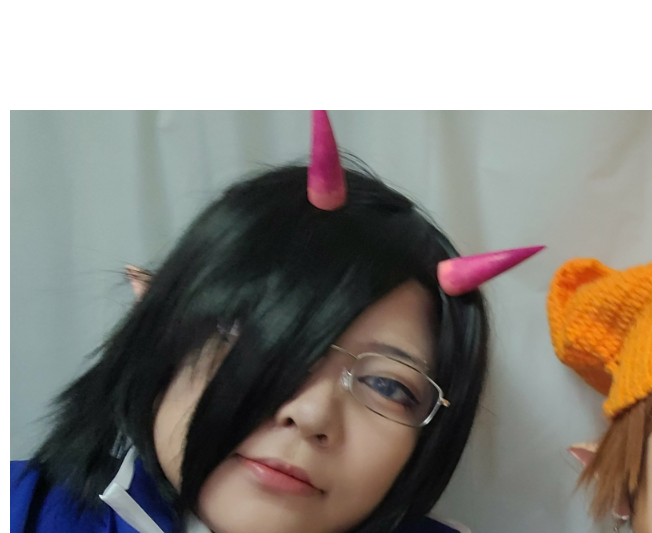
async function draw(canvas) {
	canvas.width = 652;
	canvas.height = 533;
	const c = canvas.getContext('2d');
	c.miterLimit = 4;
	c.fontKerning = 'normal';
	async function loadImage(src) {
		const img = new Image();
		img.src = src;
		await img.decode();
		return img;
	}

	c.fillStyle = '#fff';
	c.fillRect(0, 0, 652, 533);
	c.drawImage(await loadImage('img1.png'), 10, 110, 642, 423);
}

draw(document.querySelector('canvas'));
